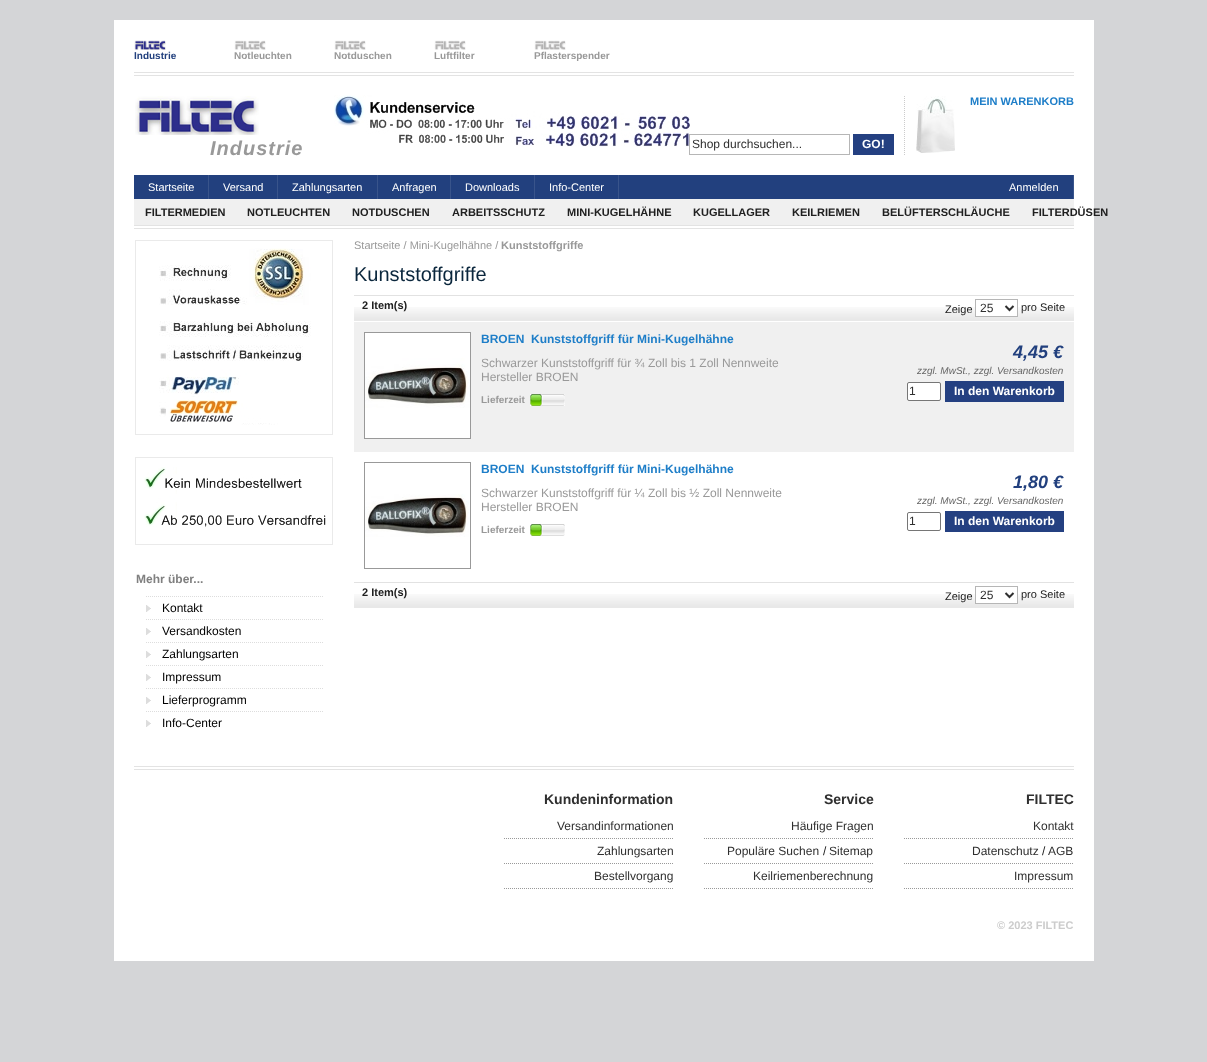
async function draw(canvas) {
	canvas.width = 1207;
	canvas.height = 1062;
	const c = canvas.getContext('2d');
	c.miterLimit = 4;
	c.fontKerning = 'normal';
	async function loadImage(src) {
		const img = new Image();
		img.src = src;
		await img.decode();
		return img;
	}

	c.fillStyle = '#d4d5d7';
	c.fillRect(0, 0, 1207, 1062);
	c.fillStyle = '#fff';
	c.fillRect(114, 20, 980, 941);
	c.drawImage(await loadImage('img1.png'), 134, 40, 32, 10);
	c.font = 'bold 10px Liberation Sans';
	c.fillStyle = '#22407e';
	c.fillText('Industrie', 134, 59);
	c.drawImage(await loadImage('img2.png'), 234, 40, 32, 10);
	c.fillStyle = '#999';
	c.fillText('Notleuchten', 234, 59);
	c.drawImage(await loadImage('img3.png'), 334, 40, 32, 10);
	c.fillText('Notduschen', 334, 59);
	c.drawImage(await loadImage('img2.png'), 434, 40, 32, 10);
	c.fillText('Luftfilter', 434, 59);
	c.drawImage(await loadImage('img4.png'), 534, 40, 32, 10);
	c.fillText('Pflasterspender', 534, 59);
	c.drawImage(await loadImage('img5.png'), 334, 95, 356, 52);
	c.fillStyle = '#e3e3e3';
	c.fillRect(134, 72, 940, 1);
	c.fillRect(134, 75, 940, 1);
	c.drawImage(await loadImage('img6.png'), 916, 96, 39, 57);
	c.beginPath();
	c.moveTo(904.5, 96);
	c.lineTo(904.5, 155);
	c.strokeStyle = '#ccc';
	c.setLineDash([1, 1]);
	c.stroke();
	c.font = 'bold 11px Liberation Sans';
	c.fillStyle = '#1e7ec8';
	c.fillText('MEIN WARENKORB', 970, 105);
	c.drawImage(await loadImage('img7.png'), 135, 96, 124, 39);
	c.letterSpacing = '1px';
	c.font = 'italic bold 20px Liberation Sans';
	c.fillStyle = '#999';
	c.fillText('Industrie', 210, 155);
	c.strokeStyle = '#b6b6b6';
	c.setLineDash([]);
	c.strokeRect(689.5, 134.5, 160, 20);
	c.letterSpacing = '0px';
	c.font = '12px Liberation Sans';
	c.fillStyle = '#2f2f2f';
	c.fillText('Shop durchsuchen...', 692, 148);
	c.fillStyle = '#244081';
	c.fillRect(853, 134, 41, 21);
	c.font = 'bold 12px Liberation Sans';
	c.fillStyle = '#fff';
	c.fillText('GO!', 862, 148);
	c.fillStyle = '#22407e';
	c.fillRect(134, 175, 939, 24);
	c.fillStyle = '#39548b';
	c.fillRect(208, 175, 1, 24);
	c.font = '11px Liberation Sans';
	c.fillStyle = '#fff';
	c.fillText('Startseite', 148, 191);
	c.fillStyle = '#39548b';
	c.fillRect(277, 175, 1, 24);
	c.fillStyle = '#fff';
	c.fillText('Versand', 223, 191);
	c.fillStyle = '#39548b';
	c.fillRect(377, 175, 1, 24);
	c.fillStyle = '#fff';
	c.fillText('Zahlungsarten', 292, 191);
	c.fillStyle = '#39548b';
	c.fillRect(450, 175, 1, 24);
	c.fillStyle = '#fff';
	c.fillText('Anfragen', 392, 191);
	c.fillStyle = '#39548b';
	c.fillRect(534, 175, 1, 24);
	c.fillStyle = '#fff';
	c.fillText('Downloads', 465, 191);
	c.fillStyle = '#39548b';
	c.fillRect(618, 175, 1, 24);
	c.fillStyle = '#fff';
	c.fillText('Info-Center', 549, 191);
	c.fillStyle = '#39548b';
	c.fillRect(1073, 175, 1, 24);
	c.fillStyle = '#fff';
	c.fillText('Anmelden', 1009, 191);
	c.fillStyle = '#f0f0f0';
	c.fillRect(134, 199, 940, 26);
	c.font = 'bold 11px Liberation Sans';
	c.fillStyle = '#202020';
	for (const [text, x, y] of [
		['FILTERMEDIEN', 145, 216],
		['NOTLEUCHTEN', 247, 216],
		['NOTDUSCHEN', 352, 216],
		['ARBEITSSCHUTZ', 452, 216],
		['MINI-KUGELHÄHNE', 567, 216],
		['KUGELLAGER', 693, 216],
		['KEILRIEMEN', 792, 216],
		['BELÜFTERSCHLÄUCHE', 882, 216],
		['FILTERDÜSEN', 1032, 216],
	]) {
		c.fillText(text, x, y);
	}
	c.fillStyle = '#e3e3e3';
	c.fillRect(134, 225, 940, 1);
	c.fillRect(134, 228, 940, 1);
	c.font = '11px Liberation Sans';
	c.fillStyle = '#999';
	c.fillText('Startseite / Mini-Kugelhähne /', 354, 249);
	c.font = 'bold 11px Liberation Sans';
	c.fillText('Kunststoffgriffe', 501, 249);
	c.font = '20px Liberation Sans';
	c.fillStyle = '#0a263c';
	c.fillText('Kunststoffgriffe', 354, 281);
	c.drawImage(await loadImage('img8.png'), 354, 307, 720, 14);
	c.fillStyle = '#e2e2e2';
	c.fillRect(354, 295, 720, 1);
	c.font = 'bold 11px Liberation Sans';
	c.fillStyle = '#202020';
	c.fillText('2 Item(s)', 362, 309);
	c.font = '11px Liberation Sans';
	c.fillText('Zeige', 945, 313);
	c.fillStyle = '#fff';
	c.fillRect(976, 307, 41, 9);
	c.strokeRect(975.5, 299.5, 42, 17);
	c.beginPath();
	c.moveTo(1005.5, 306);
	c.lineTo(1009.5, 310);
	c.lineTo(1013.5, 306);
	c.strokeStyle = '#2f2f2f';
	c.lineWidth = 2;
	c.stroke();
	c.font = '12px Liberation Sans';
	c.fillStyle = '#2f2f2f';
	c.fillText('25', 980, 312);
	c.font = '11px Liberation Sans';
	c.fillStyle = '#202020';
	c.fillText('pro Seite', 1021, 311);
	c.fillStyle = '#f0f0f0';
	c.fillRect(354, 322, 720, 130);
	c.strokeStyle = '#999';
	c.lineWidth = 1;
	c.strokeRect(364.5, 332.5, 106, 106);
	c.drawImage(await loadImage('img9.png'), 365, 333, 105, 105);
	c.font = 'bold 12px Liberation Sans';
	c.fillStyle = '#1e7ec8';
	c.fillText('BROEN  Kunststoffgriff für Mini-Kugelhähne', 481, 343);
	c.font = '12px Liberation Sans';
	c.fillStyle = '#999';
	c.fillText('Schwarzer Kunststoffgriff für ¾ Zoll bis 1 Zoll Nennweite', 481, 367);
	c.fillText('Hersteller BROEN', 481, 381);
	c.font = 'bold 10px Liberation Sans';
	c.fillText('Lieferzeit', 481, 403);
	c.drawImage(await loadImage('img10.png'), 530, 394, 35, 12);
	c.font = 'italic bold 18px Liberation Sans';
	c.fillStyle = '#22407e';
	c.fillText('4,45 €', 1013, 358);
	c.font = 'italic 10px Liberation Sans';
	c.fillStyle = '#666';
	c.fillText('zzgl. MwSt., zzgl. Versandkosten', 917, 374);
	c.fillStyle = '#fff';
	c.beginPath();
	c.roundRect(907.5, 382.5, 33, 18, 1.5);
	c.fill();
	c.strokeStyle = '#767676';
	c.stroke();
	c.font = '12px Liberation Sans';
	c.fillStyle = '#2f2f2f';
	c.fillText('1', 909, 395);
	c.fillStyle = '#244081';
	c.fillRect(945, 381, 119, 21);
	c.font = 'bold 12px Liberation Sans';
	c.fillStyle = '#fff';
	c.fillText('In den Warenkorb', 954, 395);
	c.strokeStyle = '#999';
	c.strokeRect(364.5, 462.5, 106, 106);
	c.drawImage(await loadImage('img11.png'), 365, 494, 104, 43);
	c.fillStyle = '#1e7ec8';
	c.fillText('BROEN  Kunststoffgriff für Mini-Kugelhähne', 481, 473);
	c.font = '12px Liberation Sans';
	c.fillStyle = '#999';
	c.fillText('Schwarzer Kunststoffgriff für ¼ Zoll bis ½ Zoll Nennweite', 481, 497);
	c.fillText('Hersteller BROEN', 481, 511);
	c.font = 'bold 10px Liberation Sans';
	c.fillText('Lieferzeit', 481, 533);
	c.drawImage(await loadImage('img10.png'), 530, 524, 35, 12);
	c.font = 'italic bold 18px Liberation Sans';
	c.fillStyle = '#22407e';
	c.fillText('1,80 €', 1013, 488);
	c.font = 'italic 10px Liberation Sans';
	c.fillStyle = '#666';
	c.fillText('zzgl. MwSt., zzgl. Versandkosten', 917, 504);
	c.beginPath();
	c.roundRect(907.5, 512.5, 33, 18, 1.5);
	c.strokeStyle = '#767676';
	c.stroke();
	c.font = '12px Liberation Sans';
	c.fillStyle = '#2f2f2f';
	c.fillText('1', 909, 525);
	c.fillStyle = '#244081';
	c.fillRect(945, 511, 119, 21);
	c.font = 'bold 12px Liberation Sans';
	c.fillStyle = '#fff';
	c.fillText('In den Warenkorb', 954, 525);
	c.drawImage(await loadImage('img8.png'), 354, 594, 720, 14);
	c.fillStyle = '#e2e2e2';
	c.fillRect(354, 582, 720, 1);
	c.font = 'bold 11px Liberation Sans';
	c.fillStyle = '#202020';
	c.fillText('2 Item(s)', 362, 596);
	c.font = '11px Liberation Sans';
	c.fillText('Zeige', 945, 600);
	c.fillStyle = '#fff';
	c.fillRect(976, 594, 41, 9);
	c.strokeStyle = '#b6b6b6';
	c.strokeRect(975.5, 586.5, 42, 17);
	c.beginPath();
	c.moveTo(1005.5, 593);
	c.lineTo(1009.5, 597);
	c.lineTo(1013.5, 593);
	c.strokeStyle = '#2f2f2f';
	c.lineWidth = 2;
	c.stroke();
	c.font = '12px Liberation Sans';
	c.fillStyle = '#2f2f2f';
	c.fillText('25', 980, 599);
	c.font = '11px Liberation Sans';
	c.fillStyle = '#202020';
	c.fillText('pro Seite', 1021, 598);
	c.strokeStyle = '#eaeaea';
	c.lineWidth = 1;
	c.strokeRect(135.5, 240.5, 197, 194);
	c.drawImage(await loadImage('img12.png'), 159, 248, 152, 177);
	c.strokeRect(135.5, 457.5, 197, 87);
	c.drawImage(await loadImage('img13.png'), 144, 467, 182, 60);
	c.font = 'bold 12px Liberation Sans';
	c.fillStyle = '#808080';
	c.fillText('Mehr über...', 136, 583);
	c.drawImage(await loadImage('img14.png'), 146, 605, 5, 7);
	c.beginPath();
	c.moveTo(146, 596.5);
	c.lineTo(323, 596.5);
	c.strokeStyle = '#ddd';
	c.setLineDash([1, 1]);
	c.stroke();
	c.font = '12px Liberation Sans';
	c.fillStyle = '#000';
	c.fillText('Kontakt', 162, 612);
	c.drawImage(await loadImage('img14.png'), 146, 628, 5, 7);
	c.beginPath();
	c.moveTo(146, 619.5);
	c.lineTo(323, 619.5);
	c.stroke();
	c.fillText('Versandkosten', 162, 635);
	c.drawImage(await loadImage('img14.png'), 146, 651, 5, 7);
	c.beginPath();
	c.moveTo(146, 642.5);
	c.lineTo(323, 642.5);
	c.stroke();
	c.fillText('Zahlungsarten', 162, 658);
	c.drawImage(await loadImage('img14.png'), 146, 674, 5, 7);
	c.beginPath();
	c.moveTo(146, 665.5);
	c.lineTo(323, 665.5);
	c.stroke();
	c.fillText('Impressum', 162, 681);
	c.drawImage(await loadImage('img14.png'), 146, 697, 5, 7);
	c.beginPath();
	c.moveTo(146, 688.5);
	c.lineTo(323, 688.5);
	c.stroke();
	c.fillText('Lieferprogramm', 162, 704);
	c.drawImage(await loadImage('img14.png'), 146, 720, 5, 7);
	c.beginPath();
	c.moveTo(146, 711.5);
	c.lineTo(323, 711.5);
	c.stroke();
	c.fillText('Info-Center', 162, 727);
	c.fillStyle = '#e3e3e3';
	c.fillRect(134, 766, 940, 1);
	c.fillRect(134, 769, 940, 1);
	c.font = 'bold 14px Liberation Sans';
	c.fillStyle = '#2f2f2f';
	c.fillText('Kundeninformation', 544, 804);
	c.beginPath();
	c.moveTo(504, 838.5);
	c.lineTo(674, 838.5);
	c.strokeStyle = '#999';
	c.stroke();
	c.font = '12px Liberation Sans';
	c.fillText('Versandinformationen', 557, 830);
	c.beginPath();
	c.moveTo(504, 863.5);
	c.lineTo(674, 863.5);
	c.stroke();
	c.fillText('Zahlungsarten', 597, 855);
	c.beginPath();
	c.moveTo(504, 888.5);
	c.lineTo(674, 888.5);
	c.stroke();
	c.fillText('Bestellvorgang', 594, 880);
	c.font = 'bold 14px Liberation Sans';
	c.fillText('Service', 824, 804);
	c.beginPath();
	c.moveTo(704, 838.5);
	c.lineTo(874, 838.5);
	c.stroke();
	c.font = '12px Liberation Sans';
	c.fillText('Häufige Fragen', 791, 830);
	c.beginPath();
	c.moveTo(704, 863.5);
	c.lineTo(874, 863.5);
	c.stroke();
	c.fillText('Populäre Suchen', 727, 855);
	c.fillStyle = '#202020';
	c.fillText('/', 823, 855);
	c.fillStyle = '#2f2f2f';
	c.fillText('Sitemap', 829, 855);
	c.beginPath();
	c.moveTo(704, 888.5);
	c.lineTo(874, 888.5);
	c.stroke();
	c.fillText('Keilriemenberechnung', 753, 880);
	c.font = 'bold 14px Liberation Sans';
	c.fillText('FILTEC', 1026, 804);
	c.beginPath();
	c.moveTo(904, 838.5);
	c.lineTo(1074, 838.5);
	c.stroke();
	c.font = '12px Liberation Sans';
	c.fillText('Kontakt', 1033, 830);
	c.beginPath();
	c.moveTo(904, 863.5);
	c.lineTo(1074, 863.5);
	c.stroke();
	c.fillText('Datenschutz', 972, 855);
	c.fillStyle = '#202020';
	c.fillText('/', 1042, 855);
	c.fillStyle = '#2f2f2f';
	c.fillText('AGB', 1048, 855);
	c.beginPath();
	c.moveTo(904, 888.5);
	c.lineTo(1074, 888.5);
	c.stroke();
	c.fillText('Impressum', 1014, 880);
	c.font = 'bold 11px Liberation Sans';
	c.fillStyle = '#ccc';
	c.fillText('© 2023 FILTEC', 997, 929);
}

draw(document.querySelector('canvas'));
